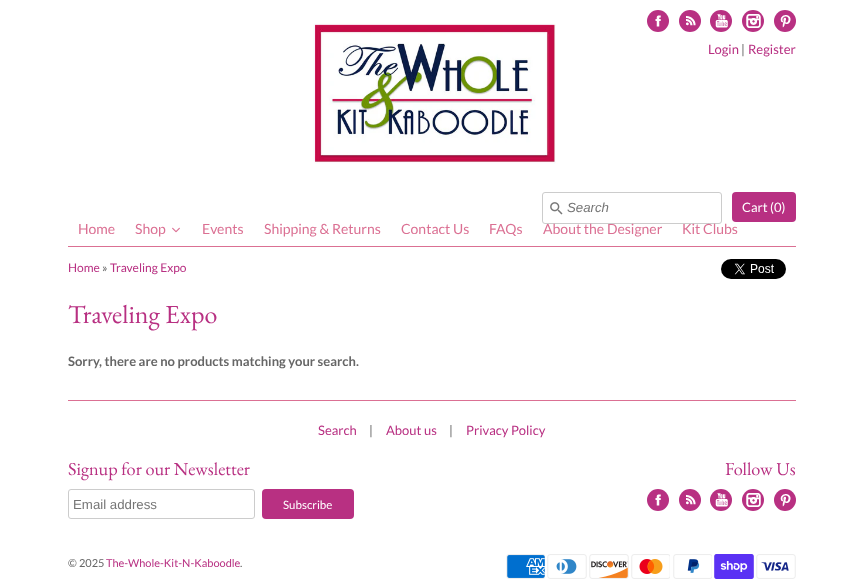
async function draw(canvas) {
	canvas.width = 863;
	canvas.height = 582;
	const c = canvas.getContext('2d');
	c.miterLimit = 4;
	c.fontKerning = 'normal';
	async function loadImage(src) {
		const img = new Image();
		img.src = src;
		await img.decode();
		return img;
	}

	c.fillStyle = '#fff';
	c.fillRect(0, 0, 863, 582);
	c.fillStyle = '#b83082';
	c.beginPath();
	c.arc(658, 21, 11, 0, 2 * Math.PI);
	c.fill();
	c.drawImage(await loadImage('img1.png'), 655, 15, 6, 12);
	c.beginPath();
	c.arc(690, 21, 11, 0, 2 * Math.PI);
	c.fill();
	c.drawImage(await loadImage('img2.png'), 686, 16, 10, 10);
	c.beginPath();
	c.arc(721, 21, 11, 0, 2 * Math.PI);
	c.fill();
	c.drawImage(await loadImage('img3.png'), 715, 14, 13, 14);
	c.beginPath();
	c.arc(753, 21, 11, 0, 2 * Math.PI);
	c.fill();
	c.drawImage(await loadImage('img4.png'), 746, 14, 15, 14);
	c.beginPath();
	c.arc(785, 21, 11, 0, 2 * Math.PI);
	c.fill();
	c.drawImage(await loadImage('img5.png'), 780, 15, 11, 13);
	c.drawImage(await loadImage('img6.png'), 313, 23, 243, 141);
	c.font = '13px Lato';
	c.fillText('Login', 708, 54);
	c.fillStyle = '#666';
	c.fillText('|', 741, 54);
	c.fillStyle = '#b83082';
	c.fillText('Register', 748, 54);
	c.fillStyle = '#db7093';
	c.fillRect(68, 246, 728, 1);
	c.drawImage(await loadImage('img7.png'), 550, 202, 13, 13);
	c.beginPath();
	c.roundRect(542.5, 192.5, 179, 31, 2.5);
	c.strokeStyle = '#ccc';
	c.stroke();
	c.font = 'italic 13.25px Liberation Sans';
	c.fillStyle = '#757575';
	c.fillText('Search', 567, 212);
	c.fillStyle = '#b83082';
	c.beginPath();
	c.roundRect(732, 192, 64, 30, 4);
	c.fill();
	c.font = '13px Lato';
	c.fillStyle = '#fff';
	c.fillText('Cart (0)', 742, 212);
	c.font = '14px Lato';
	c.fillStyle = '#db7093';
	c.fillText('Home', 78, 234);
	c.fillText('Shop', 135, 234);
	c.drawImage(await loadImage('img8.png'), 172, 227, 8, 6);
	for (const [text, x, y] of [
		['Events', 202, 234],
		['Shipping & Returns', 264, 234],
		['Contact Us', 401, 234],
		['FAQs', 489, 234],
		['About the Designer', 543, 234],
		['Kit Clubs', 682, 234],
	]) {
		c.fillText(text, x, y);
	}
	c.font = '12px Lato';
	c.fillStyle = '#b83082';
	c.fillText('Home', 68, 272);
	c.fillStyle = '#666';
	c.fillText('»', 102, 272);
	c.fillStyle = '#b83082';
	c.fillText('Traveling Expo', 110, 272);
	c.drawImage(await loadImage('img9.png'), 721, 259, 65, 20);
	c.font = '26px EB Garamond';
	c.fillText('Traveling Expo', 68, 323);
	c.font = 'bold 13px Lato';
	c.fillStyle = '#666';
	c.fillText('Sorry, there are no products matching your search.', 68, 366);
	c.fillStyle = '#db7093';
	c.fillRect(68, 400, 728, 1);
	c.font = '13px Lato';
	c.fillStyle = '#b83082';
	c.fillText('Search', 318, 435);
	c.fillStyle = '#666';
	c.fillText('|', 369, 435);
	c.fillStyle = '#b83082';
	c.fillText('About us', 386, 435);
	c.fillStyle = '#666';
	c.fillText('|', 449, 435);
	c.fillStyle = '#b83082';
	c.fillText('Privacy Policy', 466, 435);
	c.font = '18.25px EB Garamond';
	c.fillText('Signup for our Newsletter', 68, 475);
	c.beginPath();
	c.roundRect(68.5, 489.5, 186, 29, 2.5);
	c.stroke();
	c.font = '13.25px Liberation Sans';
	c.fillStyle = '#757575';
	c.fillText('Email address', 73, 509);
	c.fillStyle = '#b83082';
	c.beginPath();
	c.roundRect(262, 489, 92, 30, 4);
	c.fill();
	c.font = '11.5px Lato';
	c.fillStyle = '#fff';
	c.fillText('Subscribe', 283, 509);
	c.font = '18.25px EB Garamond';
	c.fillStyle = '#b83082';
	c.fillText('Follow Us', 725, 475);
	c.beginPath();
	c.arc(658, 500, 11, 0, 2 * Math.PI);
	c.fill();
	c.drawImage(await loadImage('img1.png'), 655, 494, 6, 12);
	c.beginPath();
	c.arc(690, 500, 11, 0, 2 * Math.PI);
	c.fill();
	c.drawImage(await loadImage('img2.png'), 686, 495, 10, 10);
	c.beginPath();
	c.arc(721, 500, 11, 0, 2 * Math.PI);
	c.fill();
	c.drawImage(await loadImage('img3.png'), 715, 493, 13, 14);
	c.beginPath();
	c.arc(753, 500, 11, 0, 2 * Math.PI);
	c.fill();
	c.drawImage(await loadImage('img4.png'), 746, 493, 15, 14);
	c.beginPath();
	c.arc(785, 500, 11, 0, 2 * Math.PI);
	c.fill();
	c.drawImage(await loadImage('img5.png'), 780, 494, 11, 13);
	c.font = '11px Lato';
	c.fillStyle = '#666';
	c.fillText('© 2025', 68, 567);
	c.fillStyle = '#b83082';
	c.fillText('The-Whole-Kit-N-Kaboodle', 106, 567);
	c.fillStyle = '#666';
	c.fillText('.', 240, 567);
	c.drawImage(await loadImage('img10.png'), 506, 554, 39, 25);
	c.drawImage(await loadImage('img11.png'), 547, 554, 40, 25);
	c.drawImage(await loadImage('img12.png'), 589, 554, 40, 25);
	c.drawImage(await loadImage('img13.png'), 631, 554, 39, 25);
	c.drawImage(await loadImage('img14.png'), 673, 554, 39, 25);
	c.drawImage(await loadImage('img15.png'), 714, 554, 40, 25);
	c.drawImage(await loadImage('img16.png'), 756, 554, 40, 25);
}

draw(document.querySelector('canvas'));
